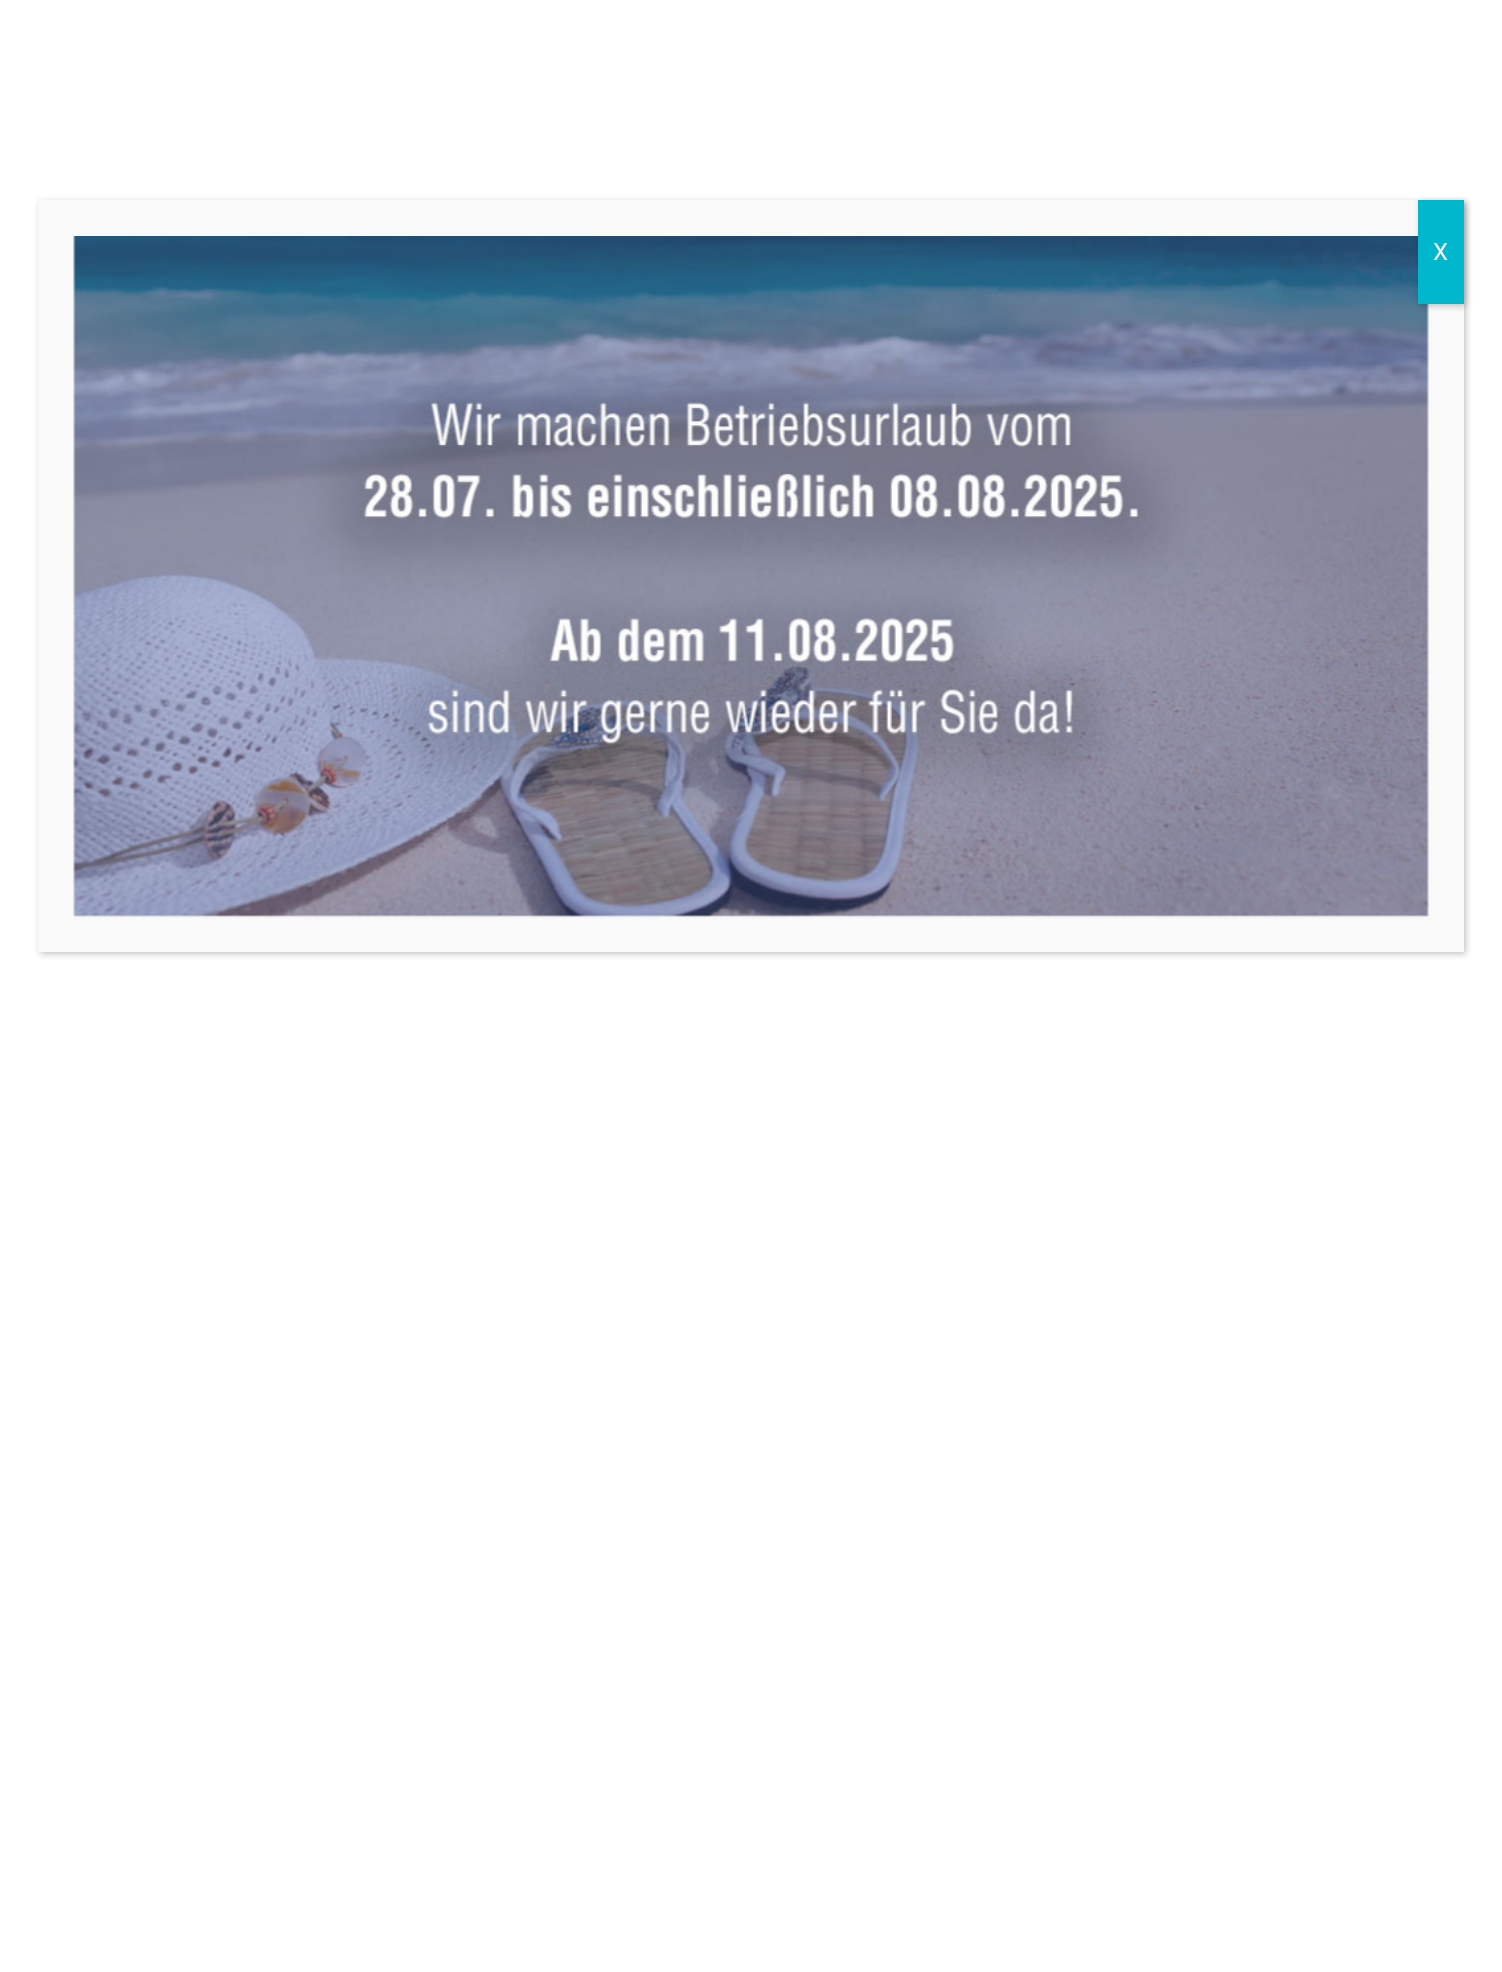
async function draw(canvas) {
	canvas.width = 1502;
	canvas.height = 1972;
	const c = canvas.getContext('2d');
	c.miterLimit = 4;
	c.fontKerning = 'normal';
	async function loadImage(src) {
		const img = new Image();
		img.src = src;
		await img.decode();
		return img;
	}

	c.fillStyle = '#fff';
	c.fillRect(0, 0, 1502, 1972);
	c.fillStyle = '#0202023b';
	c.filter = 'blur(3px)';
	c.beginPath();
	c.rect(40, 202, 1426, 752);
	c.fill();
	c.filter = 'none';
	c.fillStyle = '#f9f9f9';
	c.fillRect(38, 200, 1426, 752);
	c.drawImage(await loadImage('img1.png'), 73, 236, 1356, 682);
	c.fillStyle = '#0202023b';
	c.filter = 'blur(3px)';
	c.beginPath();
	c.rect(1420, 202, 46, 104);
	c.fill();
	c.filter = 'none';
	c.fillStyle = '#00b7cd';
	c.fillRect(1418, 200, 46, 104);
	c.font = '24px Roboto';
	c.fillStyle = '#fff';
	c.fillText('X', 1433, 260);
}

draw(document.querySelector('canvas'));
